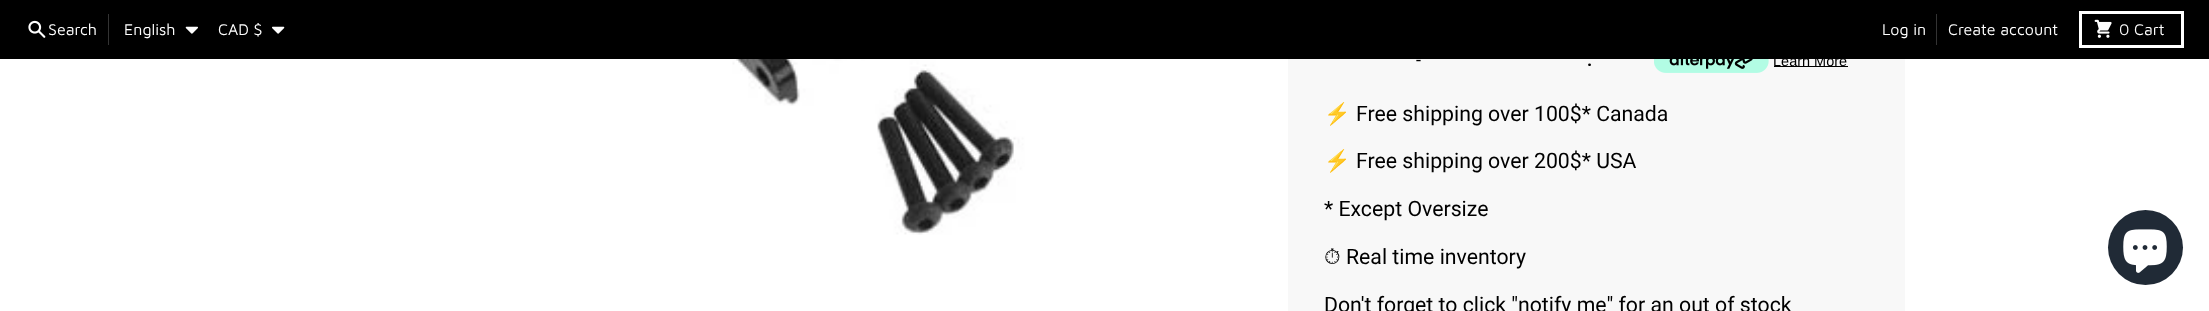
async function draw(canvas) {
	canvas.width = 2209;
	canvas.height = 311;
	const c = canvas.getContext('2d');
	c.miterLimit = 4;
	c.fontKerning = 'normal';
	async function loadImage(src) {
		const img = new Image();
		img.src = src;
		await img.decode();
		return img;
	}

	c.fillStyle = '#fff';
	c.fillRect(0, 0, 2209, 311);
	c.fillStyle = '#000';
	c.fillRect(0, 0, 2209, 59);
	c.drawImage(await loadImage('img1.png'), 28, 20, 18, 18);
	c.font = '16px Maven Pro';
	c.fillStyle = '#fff';
	c.fillText('Search', 48, 35);
	c.fillStyle = '#333';
	c.fillRect(108, 14, 1, 31);
	c.fillStyle = '#fff';
	c.fillText('English', 124, 35);
	c.drawImage(await loadImage('img2.png'), 185, 26, 13, 8);
	c.fillText('CAD $', 218, 35);
	c.drawImage(await loadImage('img3.png'), 272, 26, 13, 8);
	c.fillText('Log in', 1882, 35);
	c.fillStyle = '#333';
	c.fillRect(1936, 14, 1, 31);
	c.fillStyle = '#fff';
	c.fillText('Create account', 1948, 35);
	c.strokeStyle = '#fff';
	c.lineWidth = 3;
	c.strokeRect(2080.5, 12.5, 102, 34);
	c.drawImage(await loadImage('img4.png'), 2094, 19, 18, 19);
	c.fillText('0', 2119, 35);
	c.fillText('Cart', 2134, 35);
	c.drawImage(await loadImage('img5.png'), 670, 59, 499, 176);
	c.fillStyle = '#f8f8f8';
	c.fillRect(1288, 59, 617, 252);
	c.font = '18px Roboto';
	c.fillStyle = '#000';
	c.fillText('-', 1416, 66);
	c.drawImage(await loadImage('img6.png'), 1654, 59, 115, 14);
	c.fillRect(1774, 66, 74, 1);
	c.font = '14.5px Liberation Sans';
	c.fillText('Learn More', 1773, 66);
	c.font = 'bold 18px Roboto';
	c.fillText('.', 1587, 66);
	c.font = '21.25px Noto Color Emoji';
	c.fillText('⚡️', 1324, 121);
	c.font = '21.25px Roboto';
	c.fillText('Free shipping over 100$* Canada', 1356, 121);
	c.font = '21.25px Noto Color Emoji';
	c.fillText('⚡️', 1324, 168);
	c.font = '21.25px Roboto';
	c.fillText('Free shipping over 200$* USA', 1356, 168);
	c.fillText('* Except Oversize', 1324, 216);
	c.font = '21.25px FreeSerif';
	c.fillText('⏱', 1324, 264);
	c.font = '21.25px Roboto';
	c.fillText('Real time inventory', 1346, 264);
	c.fillText('Don\'t forget to click "notify me" for an out of stock', 1324, 312);
	c.fillStyle = '#202a36';
	c.beginPath();
	c.arc(2145.5, 247.5, 37.5, 0, 2 * Math.PI);
	c.fill();
	c.drawImage(await loadImage('img7.png'), 2123, 229, 44, 44);
}

draw(document.querySelector('canvas'));
